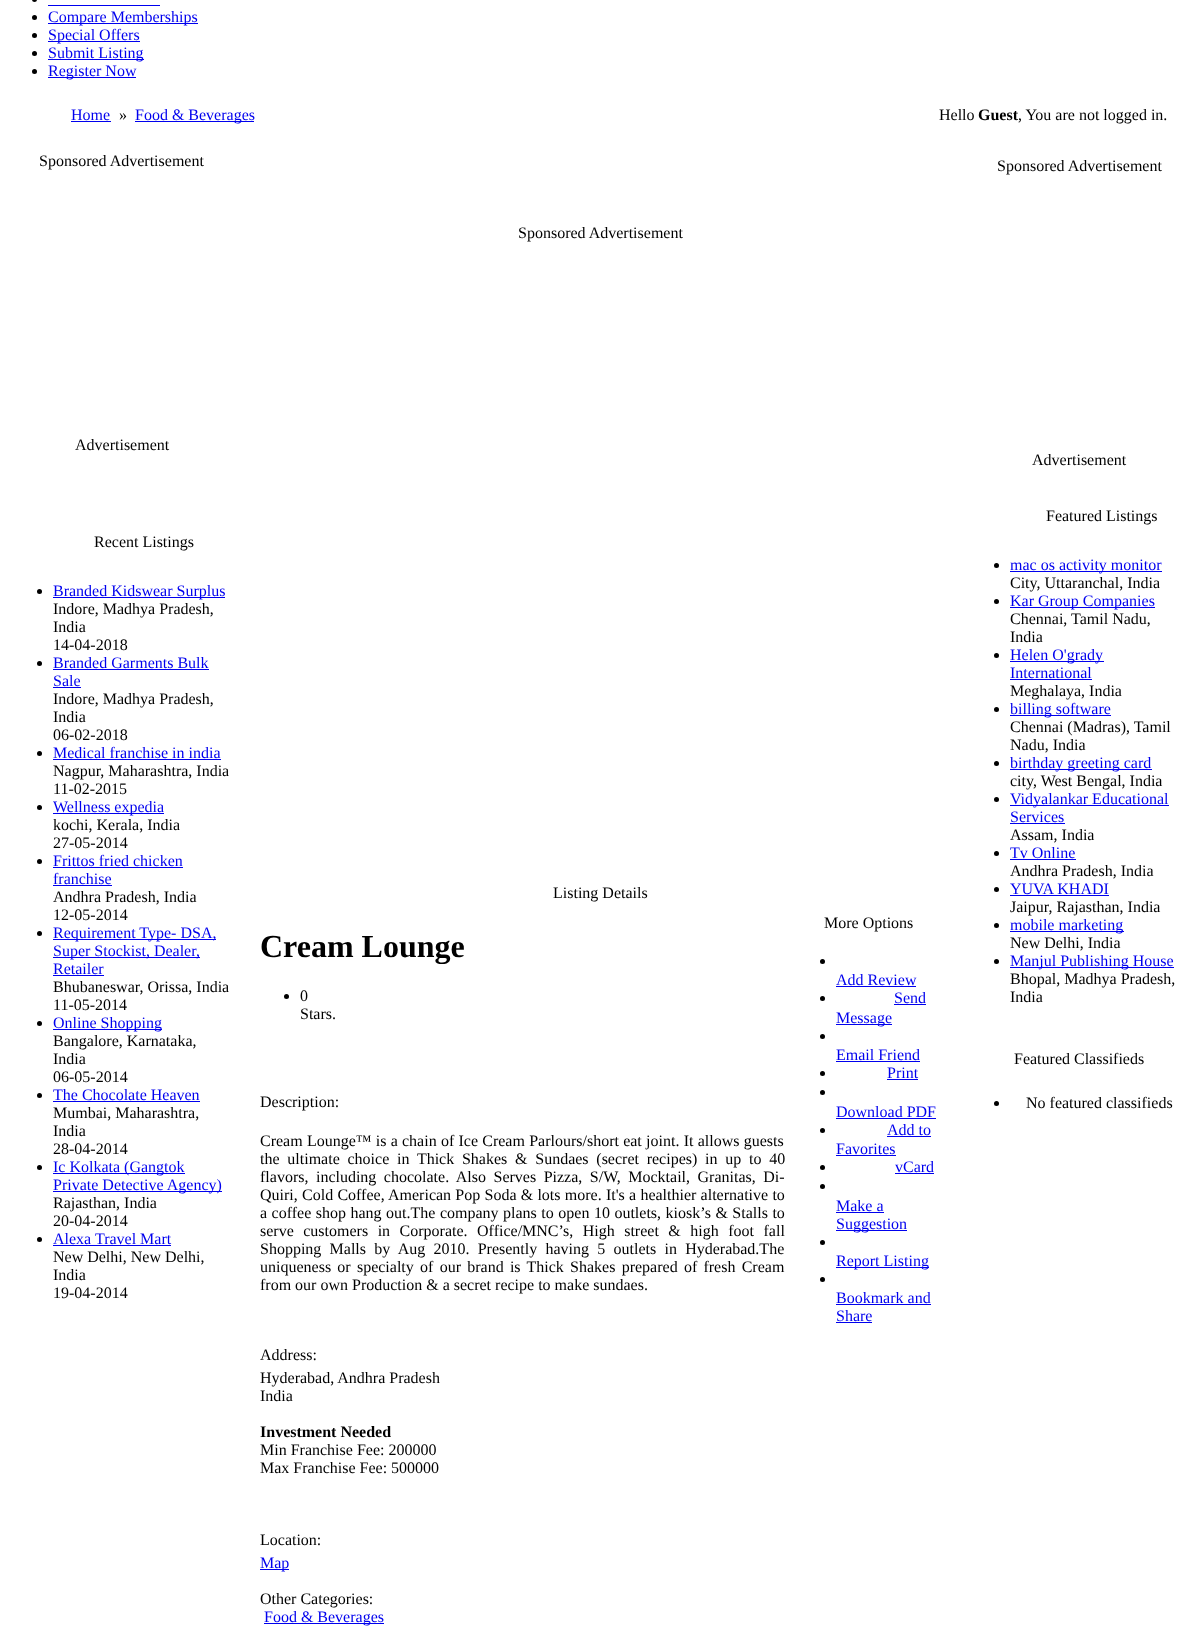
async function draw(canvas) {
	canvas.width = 1201;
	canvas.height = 1639;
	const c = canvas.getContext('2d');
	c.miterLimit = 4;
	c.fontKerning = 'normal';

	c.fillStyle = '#fff';
	c.fillRect(0, 0, 1201, 1639);
	c.fillStyle = '#000';
	c.beginPath();
	c.arc(34.5, -0.5, 2.5, 0, 2 * Math.PI);
	c.fill();
	c.fillStyle = '#00e';
	c.fillRect(48, 5, 112, 1);
	c.fillStyle = '#000';
	c.beginPath();
	c.arc(34.5, 17.5, 2.5, 0, 2 * Math.PI);
	c.fill();
	c.fillStyle = '#00e';
	c.fillRect(48, 23, 150, 1);
	c.font = '16px Liberation Serif';
	c.fillText('Compare Memberships', 48, 22);
	c.fillStyle = '#000';
	c.beginPath();
	c.arc(34.5, 35.5, 2.5, 0, 2 * Math.PI);
	c.fill();
	c.fillStyle = '#00e';
	c.fillRect(48, 41, 92, 1);
	c.fillText('Special Offers', 48, 40);
	c.fillStyle = '#000';
	c.beginPath();
	c.arc(34.5, 53.5, 2.5, 0, 2 * Math.PI);
	c.fill();
	c.fillStyle = '#00e';
	c.fillRect(48, 59, 96, 1);
	c.fillText('Submit Listing', 48, 58);
	c.fillStyle = '#000';
	c.beginPath();
	c.arc(34.5, 71.5, 2.5, 0, 2 * Math.PI);
	c.fill();
	c.fillStyle = '#00e';
	c.fillRect(48, 77, 88, 1);
	c.fillText('Register Now', 48, 76);
	c.fillText('Home', 71, 120);
	c.fillRect(71, 121, 40, 1);
	c.fillStyle = '#000';
	c.fillText('»', 119, 120);
	c.fillStyle = '#00e';
	c.fillRect(135, 121, 119, 1);
	c.fillText('Food & Beverages', 135, 120);
	c.fillStyle = '#000';
	c.fillText('Hello', 939, 120);
	c.font = 'bold 16px Liberation Serif';
	c.fillText('Guest', 978, 120);
	c.font = '16px Liberation Serif';
	for (const [text, x, y] of [
		[', You are not logged in.', 1018, 120],
		['Sponsored Advertisement', 39, 166],
		['Advertisement', 75, 450],
		['Recent Listings', 94, 547],
	]) {
		c.fillText(text, x, y);
	}
	c.beginPath();
	c.arc(39.5, 591.5, 2.5, 0, 2 * Math.PI);
	c.fill();
	c.fillStyle = '#00e';
	c.fillRect(53, 597, 172, 1);
	c.fillText('Branded Kidswear Surplus', 53, 596);
	c.fillStyle = '#000';
	for (const [text, x, y] of [
		['Indore, Madhya Pradesh,', 53, 614],
		['India', 53, 632],
		['14-04-2018', 53, 650],
	]) {
		c.fillText(text, x, y);
	}
	c.beginPath();
	c.arc(39.5, 663.5, 2.5, 0, 2 * Math.PI);
	c.fill();
	c.fillStyle = '#00e';
	c.fillText('Branded Garments Bulk', 53, 668);
	c.fillRect(53, 669, 156, 1);
	c.fillText('Sale', 53, 686);
	c.fillRect(53, 687, 28, 1);
	c.fillStyle = '#000';
	for (const [text, x, y] of [
		['Indore, Madhya Pradesh,', 53, 704],
		['India', 53, 722],
		['06-02-2018', 53, 740],
	]) {
		c.fillText(text, x, y);
	}
	c.beginPath();
	c.arc(39.5, 753.5, 2.5, 0, 2 * Math.PI);
	c.fill();
	c.fillStyle = '#00e';
	c.fillText('Medical franchise in india', 53, 758);
	c.fillRect(53, 759, 168, 1);
	c.fillStyle = '#000';
	c.fillText('Nagpur, Maharashtra, India', 53, 776);
	c.fillText('11-02-2015', 53, 794);
	c.beginPath();
	c.arc(39.5, 807.5, 2.5, 0, 2 * Math.PI);
	c.fill();
	c.fillStyle = '#00e';
	c.fillRect(53, 813, 111, 1);
	c.fillText('Wellness expedia', 53, 812);
	c.fillStyle = '#000';
	c.fillText('kochi, Kerala, India', 53, 830);
	c.fillText('27-05-2014', 53, 848);
	c.beginPath();
	c.arc(39.5, 861.5, 2.5, 0, 2 * Math.PI);
	c.fill();
	c.fillStyle = '#00e';
	c.fillText('Frittos fried chicken', 53, 866);
	c.fillRect(53, 867, 130, 1);
	c.fillText('franchise', 53, 884);
	c.fillRect(53, 885, 59, 1);
	c.fillStyle = '#000';
	c.fillText('Andhra Pradesh, India', 53, 902);
	c.fillText('12-05-2014', 53, 920);
	c.beginPath();
	c.arc(39.5, 933.5, 2.5, 0, 2 * Math.PI);
	c.fill();
	c.fillStyle = '#00e';
	c.fillRect(53, 939, 163, 1);
	c.fillText('Requirement Type- DSA,', 53, 938);
	c.fillRect(53, 957, 147, 1);
	c.fillText('Super Stockist, Dealer,', 53, 956);
	c.fillText('Retailer', 53, 974);
	c.fillRect(53, 975, 51, 1);
	c.fillStyle = '#000';
	c.fillText('Bhubaneswar, Orissa, India', 53, 992);
	c.fillText('11-05-2014', 53, 1010);
	c.beginPath();
	c.arc(39.5, 1023.5, 2.5, 0, 2 * Math.PI);
	c.fill();
	c.fillStyle = '#00e';
	c.fillRect(53, 1029, 109, 1);
	c.fillText('Online Shopping', 53, 1028);
	c.fillStyle = '#000';
	for (const [text, x, y] of [
		['Bangalore, Karnataka,', 53, 1046],
		['India', 53, 1064],
		['06-05-2014', 53, 1082],
	]) {
		c.fillText(text, x, y);
	}
	c.beginPath();
	c.arc(39.5, 1095.5, 2.5, 0, 2 * Math.PI);
	c.fill();
	c.fillStyle = '#00e';
	c.fillText('The Chocolate Heaven', 53, 1100);
	c.fillRect(53, 1101, 147, 1);
	c.fillStyle = '#000';
	for (const [text, x, y] of [
		['Mumbai, Maharashtra,', 53, 1118],
		['India', 53, 1136],
		['28-04-2014', 53, 1154],
	]) {
		c.fillText(text, x, y);
	}
	c.beginPath();
	c.arc(39.5, 1167.5, 2.5, 0, 2 * Math.PI);
	c.fill();
	c.fillStyle = '#00e';
	c.fillRect(53, 1173, 132, 1);
	c.fillText('Ic Kolkata (Gangtok', 53, 1172);
	c.fillRect(53, 1191, 169, 1);
	c.fillText('Private Detective Agency)', 53, 1190);
	c.fillStyle = '#000';
	c.fillText('Rajasthan, India', 53, 1208);
	c.fillText('20-04-2014', 53, 1226);
	c.beginPath();
	c.arc(39.5, 1239.5, 2.5, 0, 2 * Math.PI);
	c.fill();
	c.fillStyle = '#00e';
	c.fillText('Alexa Travel Mart', 53, 1244);
	c.fillRect(53, 1245, 118, 1);
	c.fillStyle = '#000';
	for (const [text, x, y] of [
		['New Delhi, New Delhi,', 53, 1262],
		['India', 53, 1280],
		['19-04-2014', 53, 1298],
		['Sponsored Advertisement', 518, 238],
		['Listing Details', 553, 898],
	]) {
		c.fillText(text, x, y);
	}
	c.font = 'bold 32px Liberation Serif';
	c.fillText('Cream Lounge', 260, 957);
	c.font = '16px Liberation Serif';
	c.fillText('More Options', 824, 928);
	c.beginPath();
	c.arc(822.5, 961.5, 2.5, 0, 2 * Math.PI);
	c.fill();
	c.fillStyle = '#00e';
	c.fillText('Add Review', 836, 985);
	c.fillRect(836, 986, 80, 1);
	c.fillStyle = '#000';
	c.beginPath();
	c.arc(822.5, 998.5, 2.5, 0, 2 * Math.PI);
	c.fill();
	c.fillStyle = '#00e';
	c.fillText('Send', 894, 1003);
	c.fillRect(894, 1004, 32, 1);
	c.fillRect(836, 1024, 56, 1);
	c.fillText('Message', 836, 1023);
	c.fillStyle = '#000';
	c.beginPath();
	c.arc(822.5, 1036.5, 2.5, 0, 2 * Math.PI);
	c.fill();
	c.fillStyle = '#00e';
	c.fillText('Email Friend', 836, 1060);
	c.fillRect(836, 1061, 84, 1);
	c.fillStyle = '#000';
	c.beginPath();
	c.arc(822.5, 1073.5, 2.5, 0, 2 * Math.PI);
	c.fill();
	c.fillStyle = '#00e';
	c.fillText('Print', 887, 1078);
	c.fillRect(887, 1079, 31, 1);
	c.fillStyle = '#000';
	c.beginPath();
	c.arc(822.5, 1092.5, 2.5, 0, 2 * Math.PI);
	c.fill();
	c.fillStyle = '#00e';
	c.fillText('Download PDF', 836, 1117);
	c.fillRect(836, 1118, 100, 1);
	c.fillStyle = '#000';
	c.beginPath();
	c.arc(822.5, 1130.5, 2.5, 0, 2 * Math.PI);
	c.fill();
	c.fillStyle = '#00e';
	c.fillText('Add to', 887, 1135);
	c.fillRect(887, 1136, 44, 1);
	c.fillText('Favorites', 836, 1154);
	c.fillRect(836, 1155, 60, 1);
	c.fillStyle = '#000';
	c.beginPath();
	c.arc(822.5, 1167.5, 2.5, 0, 2 * Math.PI);
	c.fill();
	c.fillStyle = '#00e';
	c.fillText('vCard', 895, 1172);
	c.fillRect(895, 1173, 39, 1);
	c.fillStyle = '#000';
	c.beginPath();
	c.arc(822.5, 1186.5, 2.5, 0, 2 * Math.PI);
	c.fill();
	c.fillStyle = '#00e';
	c.fillText('Make a', 836, 1211);
	c.fillRect(836, 1212, 48, 1);
	c.fillRect(836, 1230, 71, 1);
	c.fillText('Suggestion', 836, 1229);
	c.fillStyle = '#000';
	c.beginPath();
	c.arc(822.5, 1242.5, 2.5, 0, 2 * Math.PI);
	c.fill();
	c.fillStyle = '#00e';
	c.fillRect(836, 1267, 93, 1);
	c.fillText('Report Listing', 836, 1266);
	c.fillStyle = '#000';
	c.beginPath();
	c.arc(822.5, 1279.5, 2.5, 0, 2 * Math.PI);
	c.fill();
	c.fillStyle = '#00e';
	c.fillText('Bookmark and', 836, 1303);
	c.fillRect(836, 1304, 95, 1);
	c.fillText('Share', 836, 1321);
	c.fillRect(836, 1322, 36, 1);
	c.fillStyle = '#000';
	c.beginPath();
	c.arc(286.5, 996.5, 2.5, 0, 2 * Math.PI);
	c.fill();
	for (const [text, x, y] of [
		['0', 300, 1001],
		['Stars.', 300, 1019],
		['Description:', 260, 1107],
	]) {
		c.fillText(text, x, y);
	}
	c.wordSpacing = '0.25px';
	c.fillText('Cream Lounge™ is a chain of Ice Cream Parlours/short eat joint. It allows guests', 260, 1146);
	c.wordSpacing = '3.75px';
	c.fillText('the ultimate choice in Thick Shakes & Sundaes (secret recipes) in up to 40', 260, 1164);
	c.wordSpacing = '3.5px';
	c.fillText('flavors, including chocolate. Also Serves Pizza, S/W, Mocktail, Granitas, Di-', 260, 1182);
	c.wordSpacing = '0.25px';
	c.fillText('Quiri, Cold Coffee, American Pop Soda & lots more. It\'s a healthier alternative to', 260, 1200);
	c.wordSpacing = '0.5px';
	c.fillText('a coffee shop hang out.The company plans to open 10 outlets, kiosk’s & Stalls to', 260, 1218);
	c.wordSpacing = '5.5px';
	c.fillText('serve customers in Corporate. Office/MNC’s, High street & high foot fall', 260, 1236);
	c.wordSpacing = '4.25px';
	c.fillText('Shopping Malls by Aug 2010. Presently having 5 outlets in Hyderabad.The', 260, 1254);
	c.wordSpacing = '2.25px';
	c.fillText('uniqueness or specialty of our brand is Thick Shakes prepared of fresh Cream', 260, 1272);
	c.wordSpacing = '0px';
	for (const [text, x, y] of [
		['from our own Production & a secret recipe to make sundaes.', 260, 1290],
		['Address:', 260, 1360],
		['Hyderabad, Andhra Pradesh', 260, 1383],
		['India', 260, 1401],
	]) {
		c.fillText(text, x, y);
	}
	c.font = 'bold 16px Liberation Serif';
	c.fillText('Investment Needed', 260, 1437);
	c.font = '16px Liberation Serif';
	for (const [text, x, y] of [
		['Min Franchise Fee: 200000', 260, 1455],
		['Max Franchise Fee: 500000', 260, 1473],
		['Location:', 260, 1545],
	]) {
		c.fillText(text, x, y);
	}
	c.fillStyle = '#00e';
	c.fillRect(260, 1569, 29, 1);
	c.fillText('Map', 260, 1568);
	c.fillStyle = '#000';
	c.fillText('Other Categories:', 260, 1604);
	c.fillStyle = '#00e';
	c.fillRect(264, 1623, 120, 1);
	c.fillText('Food & Beverages', 264, 1622);
	c.fillStyle = '#000';
	for (const [text, x, y] of [
		['Sponsored Advertisement', 997, 171],
		['Advertisement', 1032, 465],
		['Featured Listings', 1046, 521],
	]) {
		c.fillText(text, x, y);
	}
	c.beginPath();
	c.arc(996.5, 565.5, 2.5, 0, 2 * Math.PI);
	c.fill();
	c.fillStyle = '#00e';
	c.fillRect(1010, 571, 152, 1);
	c.fillText('mac os activity monitor', 1010, 570);
	c.fillStyle = '#000';
	c.fillText('City, Uttaranchal, India', 1010, 588);
	c.beginPath();
	c.arc(996.5, 601.5, 2.5, 0, 2 * Math.PI);
	c.fill();
	c.fillStyle = '#00e';
	c.fillRect(1010, 607, 145, 1);
	c.fillText('Kar Group Companies', 1010, 606);
	c.fillStyle = '#000';
	c.fillText('Chennai, Tamil Nadu,', 1010, 624);
	c.fillText('India', 1010, 642);
	c.beginPath();
	c.arc(996.5, 655.5, 2.5, 0, 2 * Math.PI);
	c.fill();
	c.fillStyle = '#00e';
	c.fillRect(1010, 661, 94, 1);
	c.fillText('Helen O\'grady', 1010, 660);
	c.fillText('International', 1010, 678);
	c.fillRect(1010, 679, 82, 1);
	c.fillStyle = '#000';
	c.fillText('Meghalaya, India', 1010, 696);
	c.beginPath();
	c.arc(996.5, 709.5, 2.5, 0, 2 * Math.PI);
	c.fill();
	c.fillStyle = '#00e';
	c.fillRect(1010, 715, 101, 1);
	c.fillText('billing software', 1010, 714);
	c.fillStyle = '#000';
	c.fillText('Chennai (Madras), Tamil', 1010, 732);
	c.fillText('Nadu, India', 1010, 750);
	c.beginPath();
	c.arc(996.5, 763.5, 2.5, 0, 2 * Math.PI);
	c.fill();
	c.fillStyle = '#00e';
	c.fillRect(1010, 769, 142, 1);
	c.fillText('birthday greeting card', 1010, 768);
	c.fillStyle = '#000';
	c.fillText('city, West Bengal, India', 1010, 786);
	c.beginPath();
	c.arc(996.5, 799.5, 2.5, 0, 2 * Math.PI);
	c.fill();
	c.fillStyle = '#00e';
	c.fillRect(1010, 805, 159, 1);
	c.fillText('Vidyalankar Educational', 1010, 804);
	c.fillText('Services', 1010, 822);
	c.fillRect(1010, 823, 55, 1);
	c.fillStyle = '#000';
	c.fillText('Assam, India', 1010, 840);
	c.beginPath();
	c.arc(996.5, 853.5, 2.5, 0, 2 * Math.PI);
	c.fill();
	c.fillStyle = '#00e';
	c.fillText('Tv Online', 1010, 858);
	c.fillRect(1010, 859, 66, 1);
	c.fillStyle = '#000';
	c.fillText('Andhra Pradesh, India', 1010, 876);
	c.beginPath();
	c.arc(996.5, 889.5, 2.5, 0, 2 * Math.PI);
	c.fill();
	c.fillStyle = '#00e';
	c.fillText('YUVA KHADI', 1010, 894);
	c.fillRect(1010, 895, 99, 1);
	c.fillStyle = '#000';
	c.fillText('Jaipur, Rajasthan, India', 1010, 912);
	c.beginPath();
	c.arc(996.5, 925.5, 2.5, 0, 2 * Math.PI);
	c.fill();
	c.fillStyle = '#00e';
	c.fillRect(1010, 931, 114, 1);
	c.fillText('mobile marketing', 1010, 930);
	c.fillStyle = '#000';
	c.fillText('New Delhi, India', 1010, 948);
	c.beginPath();
	c.arc(996.5, 961.5, 2.5, 0, 2 * Math.PI);
	c.fill();
	c.fillStyle = '#00e';
	c.fillRect(1010, 967, 164, 1);
	c.fillText('Manjul Publishing House', 1010, 966);
	c.fillStyle = '#000';
	for (const [text, x, y] of [
		['Bhopal, Madhya Pradesh,', 1010, 984],
		['India', 1010, 1002],
		['Featured Classifieds', 1014, 1064],
	]) {
		c.fillText(text, x, y);
	}
	c.beginPath();
	c.arc(996.5, 1103.5, 2.5, 0, 2 * Math.PI);
	c.fill();
	c.fillText('No featured classifieds', 1026, 1108);
}

draw(document.querySelector('canvas'));
